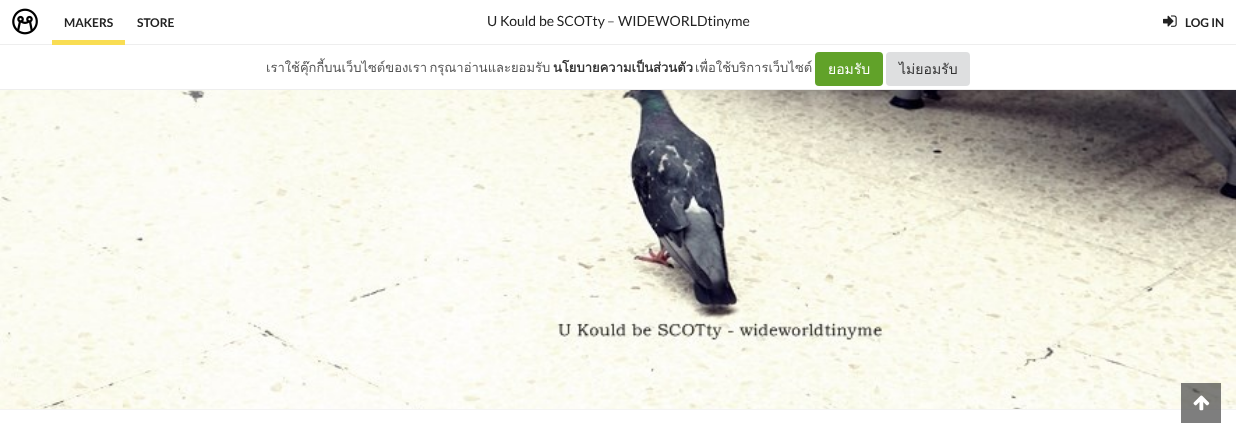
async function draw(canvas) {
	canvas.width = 1236;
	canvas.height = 438;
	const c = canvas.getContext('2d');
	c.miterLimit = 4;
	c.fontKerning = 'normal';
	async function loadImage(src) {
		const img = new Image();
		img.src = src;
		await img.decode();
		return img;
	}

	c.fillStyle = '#fff';
	c.fillRect(0, 0, 1236, 438);
	c.font = '14px Lato';
	c.fillStyle = '#222';
	c.fillText('U Kould be SCOTty', 487, 26);
	c.fillStyle = '#555';
	c.fillText('–', 607, 26);
	c.fillStyle = '#222';
	c.fillText('WIDEWORLDtinyme', 618, 26);
	c.drawImage(await loadImage('img1.png'), 0, 90, 1236, 319);
	c.fillStyle = '#f4f4f4';
	c.fillRect(0, 409, 1236, 1);
	c.fillStyle = '#474747b3';
	c.fillRect(1181, 383, 40, 40);
	c.drawImage(await loadImage('img2.png'), 1193, 395, 17, 16);
	c.fillStyle = '#eee';
	c.fillRect(0, 44, 1236, 1);
	c.drawImage(await loadImage('img3.png'), 12, 8, 26, 27);
	c.fillStyle = '#f9dd53';
	c.fillRect(52, 40, 73, 5);
	c.font = 'bold 12px Lato';
	c.fillStyle = '#222';
	c.fillText('MAKERS', 64, 27);
	c.fillText('STORE', 137, 27);
	c.drawImage(await loadImage('img4.png'), 1163, 15, 14, 12);
	c.fillText('LOG IN', 1185, 27);
	c.fillStyle = '#eee';
	c.fillRect(0, 89, 1236, 1);
	c.wordSpacing = '-2px';
	c.font = '13px Loma';
	c.fillStyle = '#555';
	c.fillText('เราใช้คุ๊กกี้บนเว็บไซต์ของเรา กรุณาอ่านและยอมรับ', 266, 72);
	c.wordSpacing = '0px';
	c.font = 'bold 13px Loma';
	c.fillStyle = '#333';
	c.fillText('นโยบายความเป็นส่วนตัว', 553, 72);
	c.font = '13px Loma';
	c.fillStyle = '#555';
	c.fillText('เพื่อใช้บริการเว็บไซต์', 695, 72);
	c.fillStyle = '#61a229';
	c.beginPath();
	c.roundRect(815, 52, 68, 34, 4);
	c.fill();
	c.font = '14px Loma';
	c.fillStyle = '#fff';
	c.fillText('ยอมรับ', 828, 74);
	c.fillStyle = '#dedfe0';
	c.beginPath();
	c.roundRect(886, 52, 84, 34, 4);
	c.fill();
	c.fillStyle = '#333';
	c.fillText('ไม่ยอมรับ', 899, 74);
}

draw(document.querySelector('canvas'));
